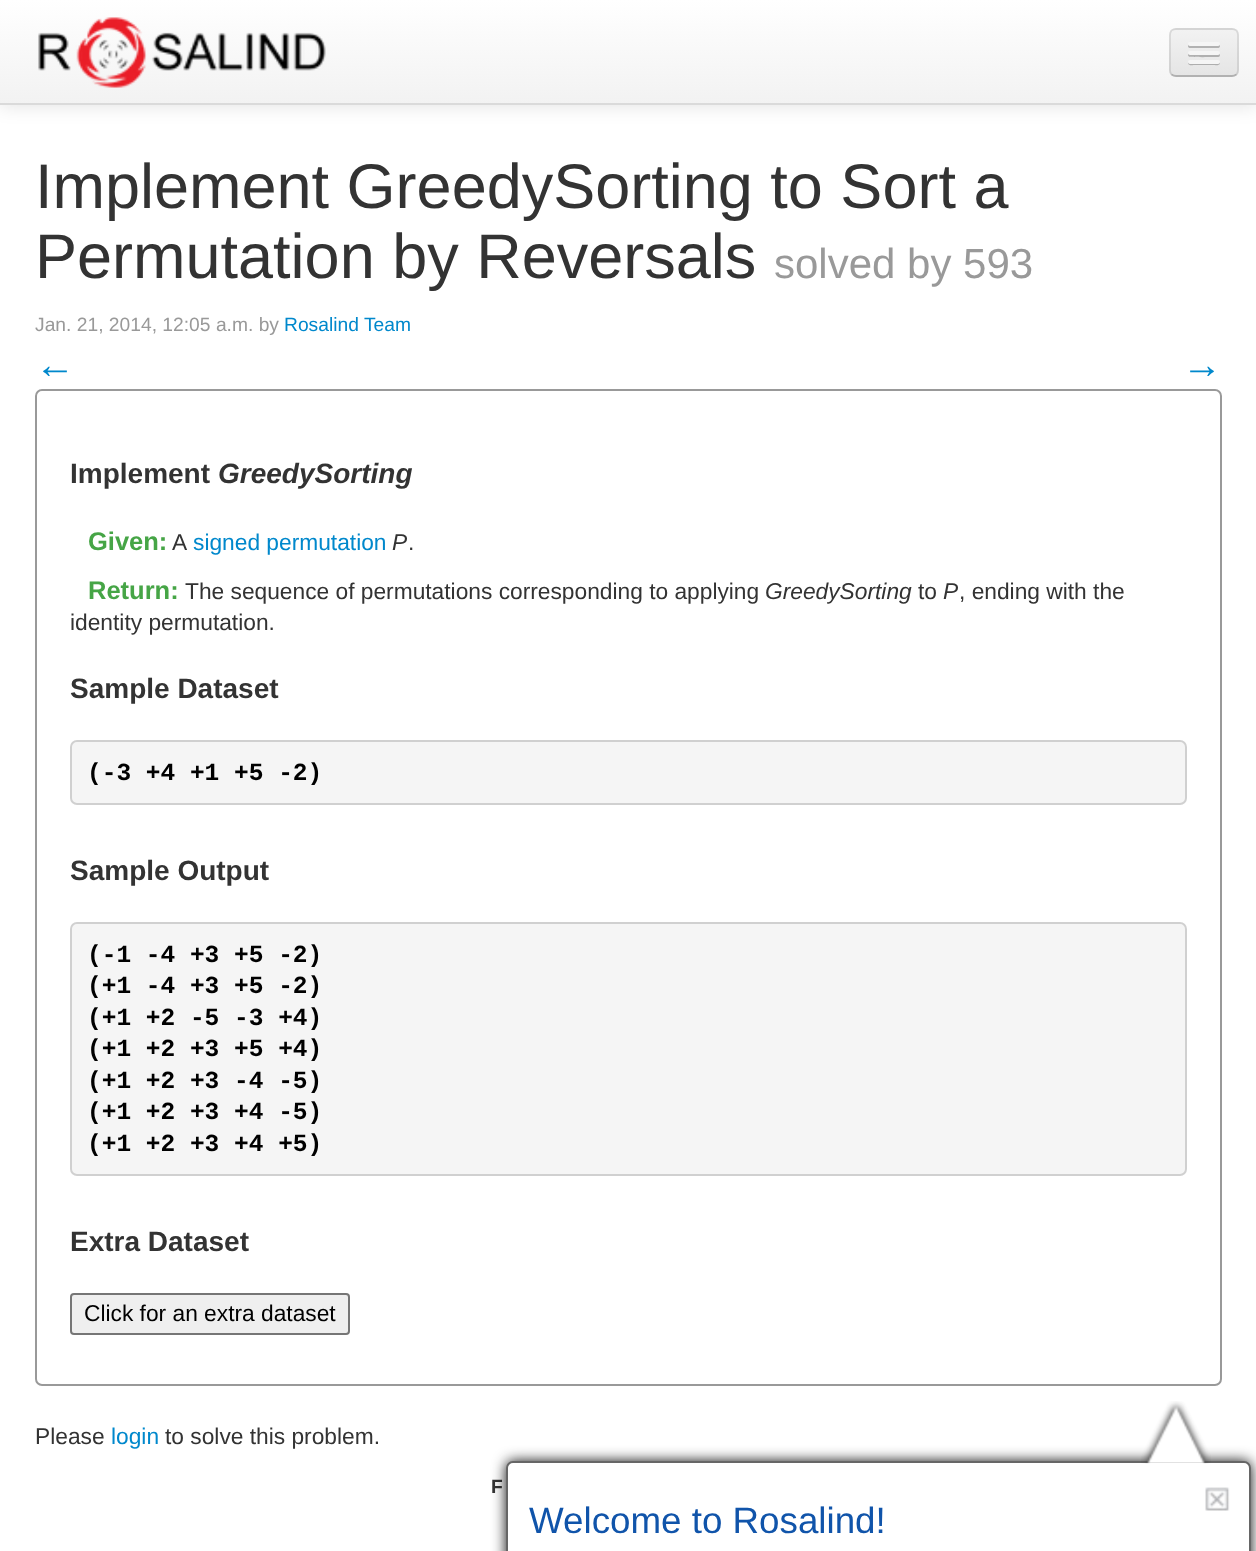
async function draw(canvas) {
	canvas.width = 1256;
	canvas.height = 1551;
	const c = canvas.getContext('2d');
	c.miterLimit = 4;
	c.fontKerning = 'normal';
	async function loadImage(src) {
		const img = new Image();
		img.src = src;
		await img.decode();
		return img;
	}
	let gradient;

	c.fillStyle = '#fff';
	c.fillRect(0, 0, 1256, 1551);
	c.fillStyle = '#0000001a';
	c.filter = 'blur(9px)';
	c.beginPath();
	c.rect(0, 2, 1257, 105);
	c.fill();
	c.filter = 'none';
	gradient = c.createLinearGradient(628, 0, 628, 105);
	gradient.addColorStop(0, '#fff');
	gradient.addColorStop(1, '#f2f2f2');
	c.fillStyle = gradient;
	c.fillRect(0, 0, 1256, 103);
	c.fillStyle = '#dadada';
	c.fillRect(0, 103, 1256, 2);
	c.drawImage(await loadImage('img1.png'), 38, 17, 288, 71);
	c.fillStyle = '#ededed';
	c.beginPath();
	c.roundRect(1169, 28, 70, 49, 7);
	c.fill();
	c.save();
	c.beginPath();
	c.roundRect(1169, 28, 70, 49, 7);
	c.clip();
	gradient = c.createLinearGradient(1204, 30, 1204, 75);
	gradient.addColorStop(0, '#f2f2f2');
	gradient.addColorStop(1, '#e5e5e5');
	c.fillStyle = gradient;
	c.fillRect(1169, 30, 70, 45);
	c.restore();
	c.beginPath();
	c.moveTo(1236.5, 74.5);
	c.bezierCurveTo(1235, 75.5, 1233.5, 76, 1232, 76);
	c.lineTo(1176, 76);
	c.bezierCurveTo(1174.5, 76, 1173, 75.5, 1171.5, 74.5);
	c.strokeStyle = '#00000040';
	c.lineWidth = 1.8;
	c.stroke();
	c.beginPath();
	c.moveTo(1171.5, 74.5);
	c.bezierCurveTo(1170.5, 73, 1170, 71.5, 1170, 70);
	c.lineTo(1170, 35);
	c.bezierCurveTo(1170, 33.5, 1170.5, 32, 1171.5, 30.5);
	c.bezierCurveTo(1173, 29.5, 1174.5, 29, 1176, 29);
	c.lineTo(1232, 29);
	c.bezierCurveTo(1233.5, 29, 1235, 29.5, 1236.5, 30.5);
	c.bezierCurveTo(1237.5, 32, 1238, 33.5, 1238, 35);
	c.lineTo(1238, 70);
	c.bezierCurveTo(1238, 71.5, 1237.5, 73, 1236.5, 74.5);
	c.strokeStyle = '#0000001a';
	c.stroke();
	c.fillStyle = '#b2b2b2';
	c.beginPath();
	c.moveTo(1188.5, 44.5);
	c.bezierCurveTo(1187.5, 46, 1188, 47.5, 1189.5, 48);
	c.lineTo(1218.5, 48);
	c.bezierCurveTo(1220, 47.5, 1220.5, 46, 1219.5, 44.5);
	c.lineTo(1218, 45.5);
	c.lineTo(1190, 45.5);
	c.closePath();
	c.fill();
	c.fillStyle = '#f5f5f5';
	c.beginPath();
	c.roundRect(1188, 42, 32, 4, 2);
	c.fill();
	c.fillStyle = '#b0b0b0';
	c.beginPath();
	c.moveTo(1188.5, 53.5);
	c.bezierCurveTo(1187.5, 54.5, 1188, 56, 1189, 56.5);
	c.bezierCurveTo(1190, 57.5, 1214.5, 57, 1218, 57);
	c.bezierCurveTo(1220, 57, 1220.5, 55, 1219.5, 53.5);
	c.lineTo(1218, 54);
	c.lineTo(1190, 54);
	c.closePath();
	c.fill();
	c.fillStyle = '#f5f5f5';
	c.beginPath();
	c.roundRect(1188, 51, 32, 4, 2);
	c.fill();
	c.fillStyle = '#aeaeae';
	c.beginPath();
	c.moveTo(1188.5, 62);
	c.lineTo(1188, 63.5);
	c.bezierCurveTo(1188.5, 66, 1193.5, 65, 1194.5, 65);
	c.lineTo(1213.5, 65);
	c.bezierCurveTo(1214.5, 65, 1219.5, 66, 1220, 63.5);
	c.lineTo(1219.5, 62);
	c.bezierCurveTo(1219.5, 62.5, 1219, 63, 1218, 63);
	c.lineTo(1190, 63);
	c.bezierCurveTo(1189, 63, 1188.5, 62.5, 1188.5, 62);
	c.closePath();
	c.fill();
	c.fillStyle = '#f5f5f5';
	c.beginPath();
	c.roundRect(1188, 60, 32, 4, 2);
	c.fill();
	c.font = '63px Liberation Sans';
	c.fillStyle = '#333';
	c.fillText('Implement GreedySorting to Sort a', 35, 208);
	c.fillText('Permutation by Reversals', 35, 278);
	c.font = '42px Liberation Sans';
	c.fillStyle = '#999';
	c.fillText('solved by 593', 774, 278);
	c.font = '19.25px Liberation Sans';
	c.fillText('Jan. 21, 2014, 12:05 a.m. by', 35, 331);
	c.fillStyle = '#08c';
	c.fillText('Rosalind Team', 284, 331);
	c.font = '40px Liberation Sans';
	c.fillText('←', 35, 378);
	c.fillText('→', 1182, 378);
	c.beginPath();
	c.roundRect(36, 390, 1185, 995, 6);
	c.strokeStyle = '#999';
	c.lineWidth = 2;
	c.stroke();
	c.font = 'bold 28px Liberation Sans';
	c.fillStyle = '#333';
	c.fillText('Implement', 70, 483);
	c.font = 'italic bold 28px Liberation Sans';
	c.fillText('GreedySorting', 218, 483);
	c.font = 'bold 25.5px Liberation Sans';
	c.fillStyle = '#46a546';
	c.fillText('Given:', 88, 550);
	c.font = '22.75px Liberation Sans';
	c.fillStyle = '#333';
	c.fillText('A', 172, 550);
	c.fillStyle = '#08c';
	c.fillText('signed permutation', 193, 550);
	c.font = 'italic 22.75px Liberation Sans';
	c.fillStyle = '#333';
	c.fillText('P', 392, 550);
	c.font = '22.75px Liberation Sans';
	c.fillText('.', 408, 550);
	c.font = 'bold 25.5px Liberation Sans';
	c.fillStyle = '#46a546';
	c.fillText('Return:', 88, 599);
	c.font = '22.75px Liberation Sans';
	c.fillStyle = '#333';
	c.fillText('The sequence of permutations corresponding to applying', 185, 599);
	c.font = 'italic 22.75px Liberation Sans';
	c.fillText('GreedySorting', 765, 599);
	c.font = '22.75px Liberation Sans';
	c.fillText('to', 918, 599);
	c.font = 'italic 22.75px Liberation Sans';
	c.fillText('P', 943, 599);
	c.font = '22.75px Liberation Sans';
	c.fillText(', ending with the', 959, 599);
	c.fillText('identity permutation.', 70, 630);
	c.font = 'bold 28px Liberation Sans';
	c.fillText('Sample Dataset', 70, 698);
	c.fillStyle = '#f5f5f5';
	c.beginPath();
	c.roundRect(70, 740, 1117, 65, 7);
	c.fill();
	c.beginPath();
	c.roundRect(71, 741, 1115, 63, 6);
	c.strokeStyle = '#00000026';
	c.stroke();
	c.font = 'bold 24.5px Liberation Mono';
	c.fillStyle = '#000';
	c.fillText('(-3 +4 +1 +5 -2)', 87, 780);
	c.font = 'bold 28px Liberation Sans';
	c.fillStyle = '#333';
	c.fillText('Sample Output', 70, 880);
	c.fillStyle = '#f5f5f5';
	c.beginPath();
	c.roundRect(70, 922, 1117, 254, 7);
	c.fill();
	c.beginPath();
	c.roundRect(71, 923, 1115, 252, 6);
	c.stroke();
	c.font = 'bold 24.5px Liberation Mono';
	c.fillStyle = '#000';
	for (const [text, x, y] of [
		['(-1 -4 +3 +5 -2)', 87, 962],
		['(+1 -4 +3 +5 -2)', 87, 993],
		['(+1 +2 -5 -3 +4)', 87, 1025],
		['(+1 +2 +3 +5 +4)', 87, 1056],
		['(+1 +2 +3 -4 -5)', 87, 1088],
		['(+1 +2 +3 +4 -5)', 87, 1119],
		['(+1 +2 +3 +4 +5)', 87, 1151],
	]) {
		c.fillText(text, x, y);
	}
	c.font = 'bold 28px Liberation Sans';
	c.fillStyle = '#333';
	c.fillText('Extra Dataset', 70, 1251);
	c.fillStyle = '#efefef';
	c.beginPath();
	c.roundRect(71, 1294, 278, 40, 3);
	c.fill();
	c.strokeStyle = '#767676';
	c.stroke();
	c.font = '22.75px Liberation Sans';
	c.fillStyle = '#000';
	c.fillText('Click for an extra dataset', 84, 1321);
	c.fillStyle = '#333';
	c.fillText('Please', 35, 1444);
	c.fillStyle = '#08c';
	c.fillText('login', 111, 1444);
	c.fillStyle = '#333';
	c.fillText('to solve this problem.', 165, 1444);
	c.font = 'bold 19.25px Liberation Sans';
	c.fillText('F', 491, 1493);
	c.fillStyle = '#111';
	c.filter = 'blur(7px)';
	c.beginPath();
	c.roundRect(506, 1461, 745, 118, 7);
	c.fill();
	c.filter = 'none';
	c.fillStyle = '#fff';
	c.beginPath();
	c.roundRect(507, 1462, 743, 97, 6);
	c.fill();
	c.strokeStyle = '#666';
	c.stroke();
	c.drawImage(await loadImage('img2.png'), 1141, 1401, 70, 63);
	c.drawImage(await loadImage('img3.png'), 1205, 1487, 25, 24);
	c.font = '36.75px Liberation Sans';
	c.fillStyle = '#1054aa';
	c.fillText('Welcome to Rosalind!', 529, 1533);
}

draw(document.querySelector('canvas'));
